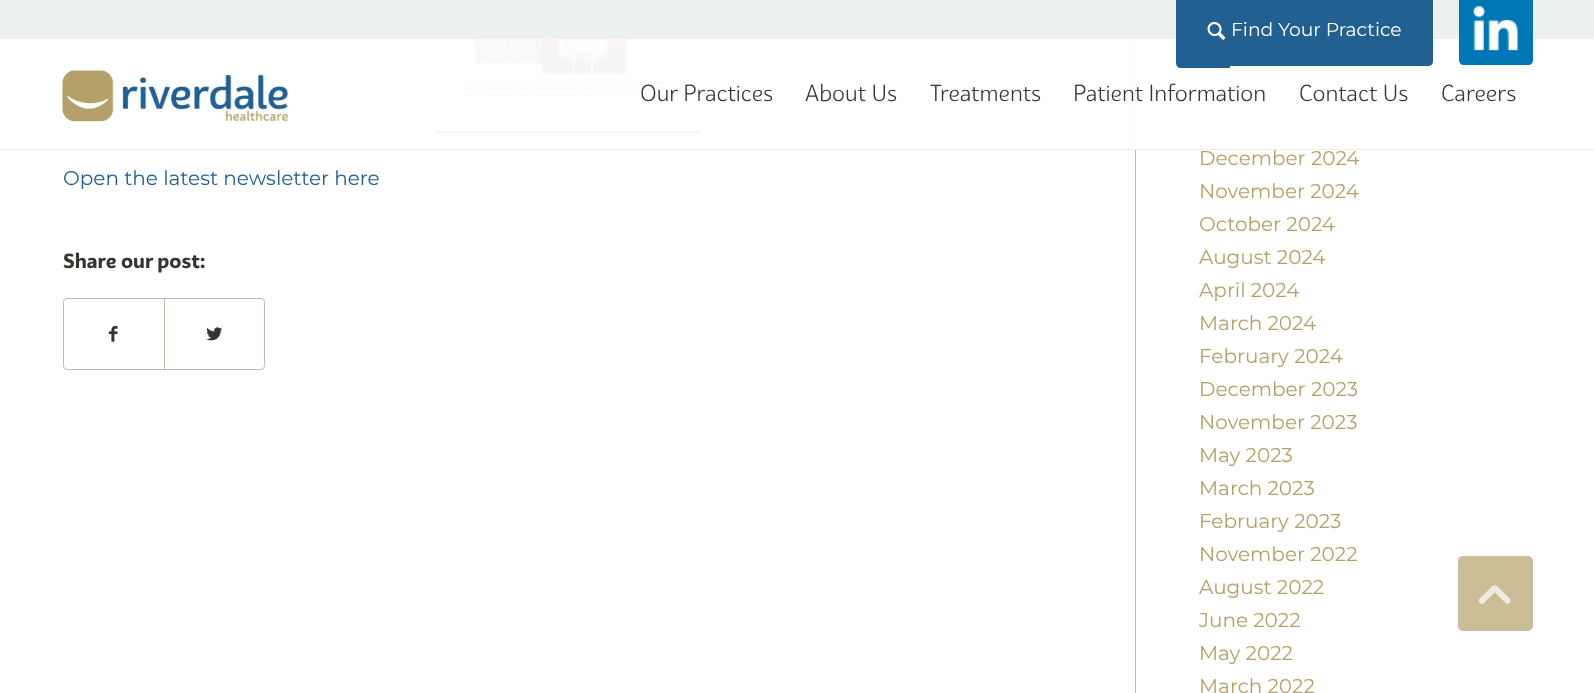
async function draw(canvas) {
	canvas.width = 1594;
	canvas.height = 693;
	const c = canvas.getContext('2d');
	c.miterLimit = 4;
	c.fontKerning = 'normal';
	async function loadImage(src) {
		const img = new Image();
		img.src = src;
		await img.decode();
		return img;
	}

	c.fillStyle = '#fff';
	c.fillRect(0, 0, 1594, 693);
	c.fillStyle = '#ecf1ed';
	c.fillRect(0, 0, 1594, 39);
	c.fillStyle = '#236092';
	c.beginPath();
	c.moveTo(1176, -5);
	c.lineTo(1230, -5);
	c.lineTo(1230, 68);
	c.lineTo(1181, 68);
	c.bezierCurveTo(1178, 68, 1176, 66, 1176, 63);
	c.closePath();
	c.fill();
	c.drawImage(await loadImage('img1.png'), 1207, 22, 19, 18);
	c.beginPath();
	c.moveTo(1230, -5);
	c.lineTo(1433, -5);
	c.lineTo(1433, 61);
	c.bezierCurveTo(1433, 64, 1431, 66, 1428, 66);
	c.lineTo(1230, 66);
	c.closePath();
	c.fill();
	c.font = '100 18.75px Montserrat';
	c.fillStyle = '#fff';
	c.fillText('Find Your Practice', 1231, 36);
	c.fillStyle = '#0077b5';
	c.beginPath();
	c.moveTo(1459, -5);
	c.lineTo(1533, -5);
	c.lineTo(1533, 60);
	c.bezierCurveTo(1533, 63, 1531, 65, 1528, 65);
	c.lineTo(1464, 65);
	c.bezierCurveTo(1461, 65, 1459, 63, 1459, 60);
	c.closePath();
	c.fill();
	c.drawImage(await loadImage('img2.png'), 1473, 6, 45, 45);
	c.fillStyle = '#fcfcfb';
	c.fillRect(1135, 39, 1, 111);
	c.fillStyle = '#ecf1ed';
	c.fillRect(0, 149, 1594, 1);
	c.drawImage(await loadImage('img3.png'), 62, 70, 226, 52);
	c.drawImage(await loadImage('img4.png'), 436, 39, 264, 95);
	c.font = '22.5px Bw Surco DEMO';
	c.fillStyle = '#36342f';
	for (const [text, x, y] of [
		['Our Practices', 640, 101],
		['About Us', 805, 101],
		['Treatments', 930, 101],
		['Patient Information', 1073, 101],
		['Contact Us', 1299, 101],
		['Careers', 1441, 101],
	]) {
		c.fillText(text, x, y);
	}
	c.font = '100 20px Montserrat';
	c.fillStyle = '#236092';
	c.fillText('Open the latest newsletter here', 63, 185);
	c.font = 'bold 20px Bw Surco DEMO';
	c.fillStyle = '#36342f';
	c.fillText('Share our post:', 63, 268);
	c.beginPath();
	c.roundRect(63.5, 298.5, 201, 71, 3.5);
	c.strokeStyle = '#c1bcaa';
	c.stroke();
	c.drawImage(await loadImage('img5.png'), 108, 326, 10, 16);
	c.fillStyle = '#c1bcaa';
	c.fillRect(164, 299, 1, 70);
	c.drawImage(await loadImage('img6.png'), 206, 327, 17, 14);
	c.fillRect(1135, 150, 1, 543);
	c.font = '100 20px Montserrat';
	c.fillStyle = '#b4a169';
	for (const [text, x, y] of [
		['December 2024', 1199, 165],
		['November 2024', 1199, 198],
		['October 2024', 1199, 231],
		['August 2024', 1199, 264],
		['April 2024', 1199, 297],
		['March 2024', 1199, 330],
		['February 2024', 1199, 363],
		['December 2023', 1199, 396],
		['November 2023', 1199, 429],
		['May 2023', 1199, 462],
		['March 2023', 1199, 495],
		['February 2023', 1199, 528],
		['November 2022', 1199, 561],
		['August 2022', 1199, 594],
		['June 2022', 1199, 627],
		['May 2022', 1199, 660],
		['March 2022', 1199, 693],
	]) {
		c.fillText(text, x, y);
	}
	c.fillStyle = '#cbbd96';
	c.beginPath();
	c.roundRect(1458, 556, 75, 75, 5);
	c.fill();
	c.drawImage(await loadImage('img7.png'), 1478, 585, 33, 19);
}

draw(document.querySelector('canvas'));
